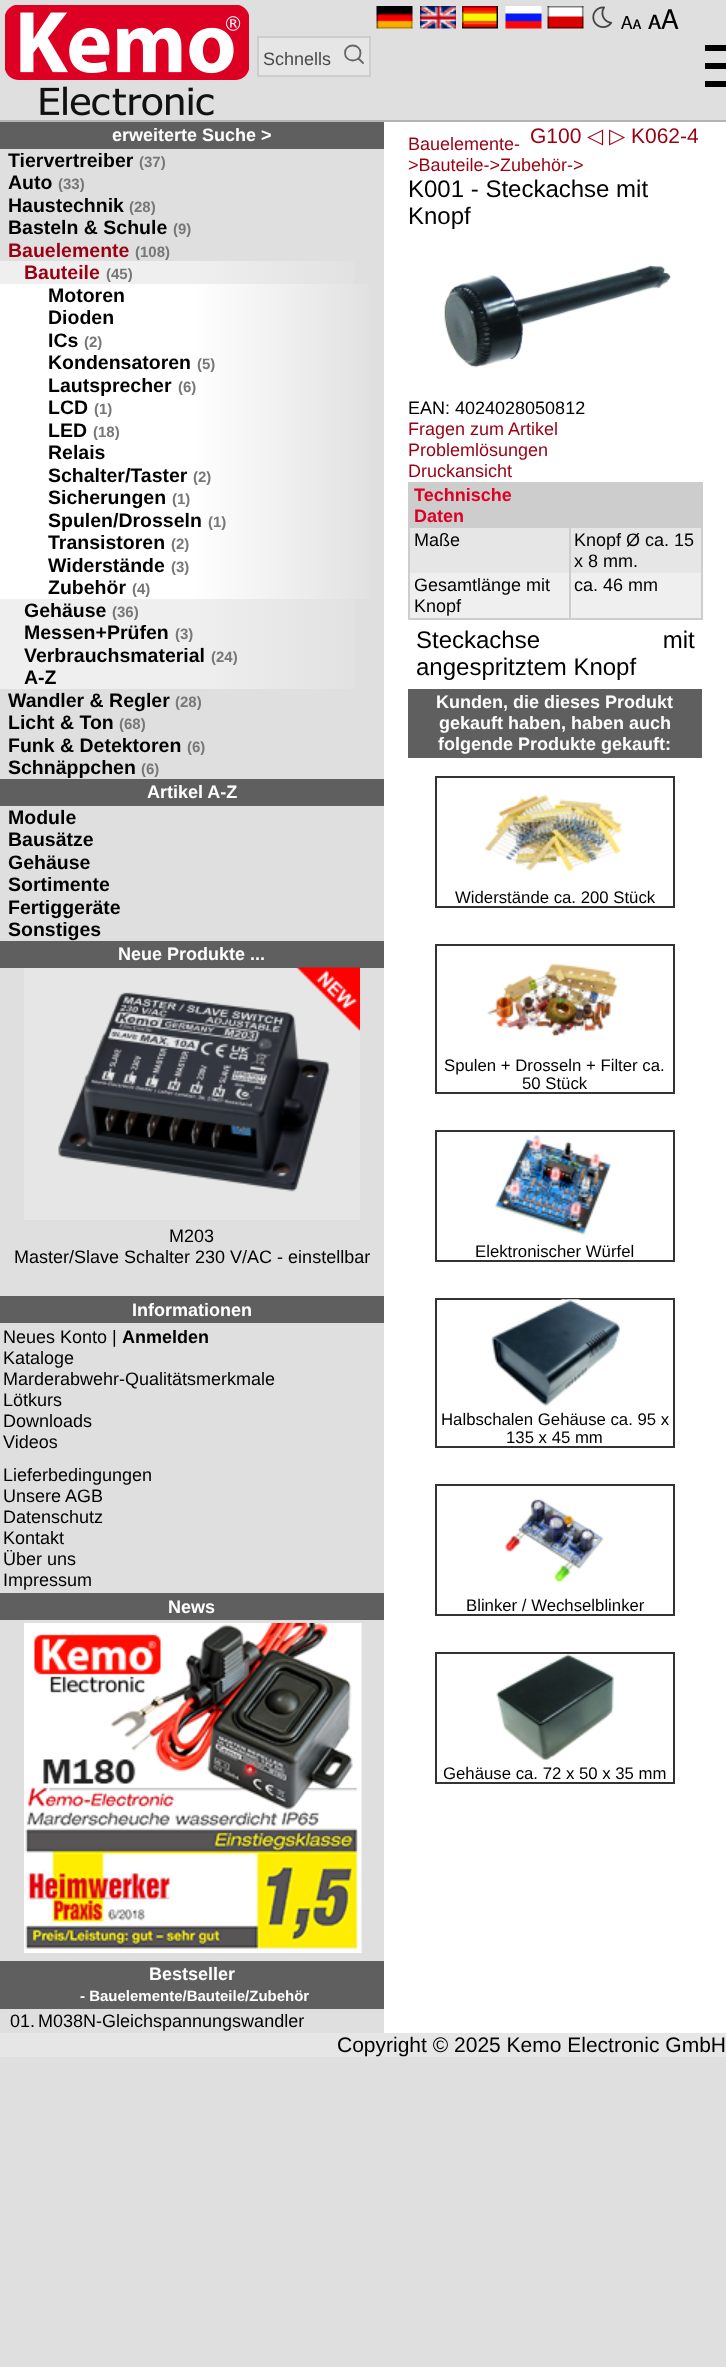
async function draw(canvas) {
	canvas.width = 726;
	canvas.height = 2367;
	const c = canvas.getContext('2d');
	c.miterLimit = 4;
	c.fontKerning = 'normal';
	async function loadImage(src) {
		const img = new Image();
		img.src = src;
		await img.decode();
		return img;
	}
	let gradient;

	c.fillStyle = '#dfdfdf';
	c.fillRect(0, 0, 726, 2367);
	c.fillStyle = '#b4b4b4';
	c.fillRect(0, 120, 726, 2);
	c.drawImage(await loadImage('img1.png'), 5, 5, 244, 111);
	c.drawImage(await loadImage('img2.png'), 376, 6, 37, 23);
	c.drawImage(await loadImage('img3.png'), 420, 6, 36, 23);
	c.drawImage(await loadImage('img4.png'), 462, 6, 36, 23);
	c.drawImage(await loadImage('img5.png'), 505, 6, 37, 23);
	c.drawImage(await loadImage('img6.png'), 547, 6, 37, 23);
	c.drawImage(await loadImage('img7.png'), 592, 6, 21, 22);
	c.font = '18px FreeSans';
	c.fillStyle = '#000';
	c.fillText('🗛', 621, 29);
	c.font = '27px FreeSans';
	c.fillText('🗚', 648, 29);
	c.fillStyle = '#e6e6e6';
	c.beginPath();
	c.rect(258, 37, 112, 39);
	c.fill();
	c.strokeStyle = '#cdcdcd';
	c.lineWidth = 2;
	c.stroke();
	c.font = '18px Liberation Sans';
	c.fillStyle = '#4b4b4b';
	c.fillText('Schnells', 263, 65);
	c.beginPath();
	c.moveTo(358.5, 58.5);
	c.lineTo(363, 63);
	c.moveTo(360.5, 53);
	c.bezierCurveTo(360.5, 63, 345, 63, 345, 53);
	c.bezierCurveTo(345, 43, 360.5, 43, 360.5, 53);
	c.closePath();
	c.strokeStyle = '#666';
	c.lineWidth = 1.8;
	c.lineCap = 'round';
	c.lineJoin = 'round';
	c.stroke();
	for (const [x, y, w, h, color] of [
		[705, 45, 21, 6, '#000'],
		[705, 63, 21, 6, '#000'],
		[705, 81, 21, 6, '#000'],
		[0, 122, 384, 27, '#5f5f5f'],
	]) {
		c.fillStyle = color;
		c.fillRect(x, y, w, h);
	}
	c.font = 'bold 18px Liberation Sans';
	c.fillStyle = '#fff';
	c.fillText('erweiterte Suche >', 112, 141);
	c.font = 'bold 19.5px Liberation Sans';
	c.fillStyle = '#000';
	c.fillText('Tiervertreiber', 8, 167);
	c.font = 'bold 15px Liberation Sans';
	c.fillStyle = '#777';
	c.fillText('(37)', 139, 167);
	c.font = 'bold 19.5px Liberation Sans';
	c.fillStyle = '#000';
	c.fillText('Auto', 8, 189);
	c.font = 'bold 15px Liberation Sans';
	c.fillStyle = '#777';
	c.fillText('(33)', 58, 189);
	c.font = 'bold 19.5px Liberation Sans';
	c.fillStyle = '#000';
	c.fillText('Haustechnik', 8, 212);
	c.font = 'bold 15px Liberation Sans';
	c.fillStyle = '#777';
	c.fillText('(28)', 129, 212);
	c.font = 'bold 19.5px Liberation Sans';
	c.fillStyle = '#000';
	c.fillText('Basteln & Schule', 8, 234);
	c.font = 'bold 15px Liberation Sans';
	c.fillStyle = '#777';
	c.fillText('(9)', 173, 234);
	c.font = 'bold 19.5px Liberation Sans';
	c.fillStyle = '#901';
	c.fillText('Bauelemente', 8, 257);
	c.font = 'bold 15px Liberation Sans';
	c.fillStyle = '#777';
	c.fillText('(108)', 135, 257);
	gradient = c.createLinearGradient(0, 272, 384, 272);
	gradient.addColorStop(0, '#efefef');
	gradient.addColorStop(0.5, '#efefef');
	gradient.addColorStop(1, '#dfdfdf');
	c.fillStyle = gradient;
	c.fillRect(0, 261, 354, 23);
	c.font = 'bold 19.5px Liberation Sans';
	c.fillStyle = '#901';
	c.fillText('Bauteile', 24, 279);
	c.font = 'bold 15px Liberation Sans';
	c.fillStyle = '#777';
	c.fillText('(45)', 106, 279);
	gradient = c.createLinearGradient(0, 295, 384, 295);
	gradient.addColorStop(0, '#fff');
	gradient.addColorStop(0.5, '#fff');
	gradient.addColorStop(1, '#dfdfdf');
	c.fillStyle = gradient;
	c.fillRect(0, 284, 369, 22);
	c.font = 'bold 19.5px Liberation Sans';
	c.fillStyle = '#000';
	c.fillText('Motoren', 48, 302);
	gradient = c.createLinearGradient(0, 317, 384, 317);
	gradient.addColorStop(0, '#fff');
	gradient.addColorStop(0.5, '#fff');
	gradient.addColorStop(1, '#dfdfdf');
	c.fillStyle = gradient;
	c.fillRect(0, 306, 369, 23);
	c.fillStyle = '#000';
	c.fillText('Dioden', 48, 324);
	gradient = c.createLinearGradient(0, 340, 384, 340);
	gradient.addColorStop(0, '#fff');
	gradient.addColorStop(0.5, '#fff');
	gradient.addColorStop(1, '#dfdfdf');
	c.fillStyle = gradient;
	c.fillRect(0, 329, 369, 22);
	c.fillStyle = '#000';
	c.fillText('ICs', 48, 347);
	c.font = 'bold 15px Liberation Sans';
	c.fillStyle = '#777';
	c.fillText('(2)', 84, 347);
	gradient = c.createLinearGradient(0, 362, 384, 362);
	gradient.addColorStop(0, '#fff');
	gradient.addColorStop(0.5, '#fff');
	gradient.addColorStop(1, '#dfdfdf');
	c.fillStyle = gradient;
	c.fillRect(0, 351, 369, 23);
	c.font = 'bold 19.5px Liberation Sans';
	c.fillStyle = '#000';
	c.fillText('Kondensatoren', 48, 369);
	c.font = 'bold 15px Liberation Sans';
	c.fillStyle = '#777';
	c.fillText('(5)', 197, 369);
	gradient = c.createLinearGradient(0, 385, 384, 385);
	gradient.addColorStop(0, '#fff');
	gradient.addColorStop(0.5, '#fff');
	gradient.addColorStop(1, '#dfdfdf');
	c.fillStyle = gradient;
	c.fillRect(0, 374, 369, 22);
	gradient = c.createLinearGradient(0, 407, 384, 407);
	gradient.addColorStop(0, '#fff');
	gradient.addColorStop(0.5, '#fff');
	gradient.addColorStop(1, '#dfdfdf');
	c.fillStyle = gradient;
	c.fillRect(0, 396, 369, 23);
	c.font = 'bold 19.5px Liberation Sans';
	c.fillStyle = '#000';
	c.fillText('Lautsprecher', 48, 392);
	c.font = 'bold 15px Liberation Sans';
	c.fillStyle = '#777';
	c.fillText('(6)', 178, 392);
	c.font = 'bold 19.5px Liberation Sans';
	c.fillStyle = '#000';
	c.fillText('LCD', 48, 414);
	c.font = 'bold 15px Liberation Sans';
	c.fillStyle = '#777';
	c.fillText('(1)', 94, 414);
	gradient = c.createLinearGradient(0, 430, 384, 430);
	gradient.addColorStop(0, '#fff');
	gradient.addColorStop(0.5, '#fff');
	gradient.addColorStop(1, '#dfdfdf');
	c.fillStyle = gradient;
	c.fillRect(0, 419, 369, 22);
	c.font = 'bold 19.5px Liberation Sans';
	c.fillStyle = '#000';
	c.fillText('LED', 48, 437);
	c.font = 'bold 15px Liberation Sans';
	c.fillStyle = '#777';
	c.fillText('(18)', 93, 437);
	gradient = c.createLinearGradient(0, 452, 384, 452);
	gradient.addColorStop(0, '#fff');
	gradient.addColorStop(0.5, '#fff');
	gradient.addColorStop(1, '#dfdfdf');
	c.fillStyle = gradient;
	c.fillRect(0, 441, 369, 23);
	c.font = 'bold 19.5px Liberation Sans';
	c.fillStyle = '#000';
	c.fillText('Relais', 48, 459);
	gradient = c.createLinearGradient(0, 475, 384, 475);
	gradient.addColorStop(0, '#fff');
	gradient.addColorStop(0.5, '#fff');
	gradient.addColorStop(1, '#dfdfdf');
	c.fillStyle = gradient;
	c.fillRect(0, 464, 369, 22);
	c.fillStyle = '#000';
	c.fillText('Schalter/Taster', 48, 482);
	c.font = 'bold 15px Liberation Sans';
	c.fillStyle = '#777';
	c.fillText('(2)', 193, 482);
	gradient = c.createLinearGradient(0, 497, 384, 497);
	gradient.addColorStop(0, '#fff');
	gradient.addColorStop(0.5, '#fff');
	gradient.addColorStop(1, '#dfdfdf');
	c.fillStyle = gradient;
	c.fillRect(0, 486, 369, 23);
	c.font = 'bold 19.5px Liberation Sans';
	c.fillStyle = '#000';
	c.fillText('Sicherungen', 48, 504);
	c.font = 'bold 15px Liberation Sans';
	c.fillStyle = '#777';
	c.fillText('(1)', 172, 504);
	gradient = c.createLinearGradient(0, 520, 384, 520);
	gradient.addColorStop(0, '#fff');
	gradient.addColorStop(0.5, '#fff');
	gradient.addColorStop(1, '#dfdfdf');
	c.fillStyle = gradient;
	c.fillRect(0, 509, 369, 22);
	gradient = c.createLinearGradient(0, 542, 384, 542);
	gradient.addColorStop(0, '#fff');
	gradient.addColorStop(0.5, '#fff');
	gradient.addColorStop(1, '#dfdfdf');
	c.fillStyle = gradient;
	c.fillRect(0, 531, 369, 23);
	c.font = 'bold 19.5px Liberation Sans';
	c.fillStyle = '#000';
	c.fillText('Spulen/Drosseln', 48, 527);
	c.font = 'bold 15px Liberation Sans';
	c.fillStyle = '#777';
	c.fillText('(1)', 208, 527);
	c.font = 'bold 19.5px Liberation Sans';
	c.fillStyle = '#000';
	c.fillText('Transistoren', 48, 549);
	c.font = 'bold 15px Liberation Sans';
	c.fillStyle = '#777';
	c.fillText('(2)', 171, 549);
	gradient = c.createLinearGradient(0, 565, 384, 565);
	gradient.addColorStop(0, '#fff');
	gradient.addColorStop(0.5, '#fff');
	gradient.addColorStop(1, '#dfdfdf');
	c.fillStyle = gradient;
	c.fillRect(0, 554, 369, 22);
	c.font = 'bold 19.5px Liberation Sans';
	c.fillStyle = '#000';
	c.fillText('Widerstände', 48, 572);
	c.font = 'bold 15px Liberation Sans';
	c.fillStyle = '#777';
	c.fillText('(3)', 171, 572);
	gradient = c.createLinearGradient(0, 587, 384, 587);
	gradient.addColorStop(0, '#fff');
	gradient.addColorStop(0.5, '#fff');
	gradient.addColorStop(1, '#dfdfdf');
	c.fillStyle = gradient;
	c.fillRect(0, 576, 369, 23);
	c.font = 'bold 19.5px Liberation Sans';
	c.fillStyle = '#000';
	c.fillText('Zubehör', 48, 594);
	c.font = 'bold 15px Liberation Sans';
	c.fillStyle = '#777';
	c.fillText('(4)', 132, 594);
	gradient = c.createLinearGradient(0, 610, 384, 610);
	gradient.addColorStop(0, '#efefef');
	gradient.addColorStop(0.5, '#efefef');
	gradient.addColorStop(1, '#dfdfdf');
	c.fillStyle = gradient;
	c.fillRect(0, 599, 354, 22);
	c.font = 'bold 19.5px Liberation Sans';
	c.fillStyle = '#000';
	c.fillText('Gehäuse', 24, 617);
	c.font = 'bold 15px Liberation Sans';
	c.fillStyle = '#777';
	c.fillText('(36)', 112, 617);
	gradient = c.createLinearGradient(0, 632, 384, 632);
	gradient.addColorStop(0, '#efefef');
	gradient.addColorStop(0.5, '#efefef');
	gradient.addColorStop(1, '#dfdfdf');
	c.fillStyle = gradient;
	c.fillRect(0, 621, 354, 23);
	c.font = 'bold 19.5px Liberation Sans';
	c.fillStyle = '#000';
	c.fillText('Messen+Prüfen', 24, 639);
	c.font = 'bold 15px Liberation Sans';
	c.fillStyle = '#777';
	c.fillText('(3)', 175, 639);
	gradient = c.createLinearGradient(0, 655, 384, 655);
	gradient.addColorStop(0, '#efefef');
	gradient.addColorStop(0.5, '#efefef');
	gradient.addColorStop(1, '#dfdfdf');
	c.fillStyle = gradient;
	c.fillRect(0, 644, 354, 22);
	c.font = 'bold 19.5px Liberation Sans';
	c.fillStyle = '#000';
	c.fillText('Verbrauchsmaterial', 24, 662);
	c.font = 'bold 15px Liberation Sans';
	c.fillStyle = '#777';
	c.fillText('(24)', 211, 662);
	gradient = c.createLinearGradient(0, 677, 384, 677);
	gradient.addColorStop(0, '#efefef');
	gradient.addColorStop(0.5, '#efefef');
	gradient.addColorStop(1, '#dfdfdf');
	c.fillStyle = gradient;
	c.fillRect(0, 666, 354, 23);
	c.font = 'bold 19.5px Liberation Sans';
	c.fillStyle = '#000';
	c.fillText('A-Z', 24, 684);
	c.fillText('Wandler & Regler', 8, 707);
	c.font = 'bold 15px Liberation Sans';
	c.fillStyle = '#777';
	c.fillText('(28)', 175, 707);
	c.font = 'bold 19.5px Liberation Sans';
	c.fillStyle = '#000';
	c.fillText('Licht & Ton', 8, 729);
	c.font = 'bold 15px Liberation Sans';
	c.fillStyle = '#777';
	c.fillText('(68)', 119, 729);
	c.font = 'bold 19.5px Liberation Sans';
	c.fillStyle = '#000';
	c.fillText('Funk & Detektoren', 8, 752);
	c.font = 'bold 15px Liberation Sans';
	c.fillStyle = '#777';
	c.fillText('(6)', 187, 752);
	c.font = 'bold 19.5px Liberation Sans';
	c.fillStyle = '#000';
	c.fillText('Schnäppchen', 8, 774);
	c.font = 'bold 15px Liberation Sans';
	c.fillStyle = '#777';
	c.fillText('(6)', 141, 774);
	c.fillStyle = '#5f5f5f';
	c.fillRect(0, 779, 384, 27);
	c.font = 'bold 18px Liberation Sans';
	c.fillStyle = '#fff';
	c.fillText('Artikel A-Z', 147, 798);
	c.font = 'bold 19.5px Liberation Sans';
	c.fillStyle = '#000';
	for (const [text, x, y] of [
		['Module', 8, 824],
		['Bausätze', 8, 846],
		['Gehäuse', 8, 869],
		['Sortimente', 8, 891],
		['Fertiggeräte', 8, 914],
		['Sonstiges', 8, 936],
	]) {
		c.fillText(text, x, y);
	}
	c.fillStyle = '#5f5f5f';
	c.fillRect(0, 941, 384, 27);
	c.font = 'bold 18px Liberation Sans';
	c.fillStyle = '#fff';
	c.fillText('Neue Produkte ...', 118, 960);
	c.fillStyle = '#e6e6e6';
	c.fillRect(24, 968, 336, 252);
	c.drawImage(await loadImage('img8.png'), 58, 967, 302, 225);
	c.font = '18px Liberation Sans';
	c.fillStyle = '#000';
	c.fillText('M203', 169, 1242);
	c.fillText('Master/Slave Schalter 230 V/AC - einstellbar', 14, 1263);
	c.fillStyle = '#5f5f5f';
	c.fillRect(0, 1296, 384, 27);
	c.font = 'bold 18px Liberation Sans';
	c.fillStyle = '#fff';
	c.fillText('Informationen', 132, 1316);
	c.font = '18px Liberation Sans';
	c.fillStyle = '#000';
	c.fillText('Neues Konto |', 3, 1343);
	c.font = 'bold 18px Liberation Sans';
	c.fillText('Anmelden', 122, 1343);
	c.font = '18px Liberation Sans';
	for (const [text, x, y] of [
		['Kataloge', 3, 1364],
		['Marderabwehr-Qualitätsmerkmale', 3, 1385],
		['Lötkurs', 3, 1406],
		['Downloads', 3, 1427],
		['Videos', 3, 1448],
		['Lieferbedingungen', 3, 1481],
		['Unsere AGB', 3, 1502],
		['Datenschutz', 3, 1523],
		['Kontakt', 3, 1544],
		['Über uns', 3, 1565],
		['Impressum', 3, 1586],
	]) {
		c.fillText(text, x, y);
	}
	c.fillStyle = '#5f5f5f';
	c.fillRect(0, 1593, 384, 27);
	c.font = 'bold 18px Liberation Sans';
	c.fillStyle = '#fff';
	c.fillText('News', 168, 1613);
	c.drawImage(await loadImage('img9.png'), 24, 1623, 338, 330);
	c.fillStyle = '#5f5f5f';
	c.fillRect(0, 1961, 384, 48);
	c.fillStyle = '#fff';
	c.fillText('Bestseller', 149, 1980);
	c.font = 'bold 15px Liberation Sans';
	c.fillText('- Bauelemente/Bauteile/Zubehör', 80, 2001);
	c.font = '18px Liberation Sans';
	c.fillStyle = '#000';
	c.fillText('01.', 10, 2027);
	c.fillText('M038N-Gleichspannungswandler', 38, 2027);
	c.fillStyle = '#fff';
	c.fillRect(384, 122, 342, 1911);
	c.fillStyle = '#901';
	c.fillText('Bauelemente-', 408, 150);
	c.fillText('>Bauteile->Zubehör->', 408, 171);
	c.font = '21px Liberation Sans';
	c.fillText('G100', 530, 143);
	c.font = '21px DejaVu Sans';
	c.fillText('◁', 587, 143);
	c.fillText('▷', 609, 143);
	c.font = '21px Liberation Sans';
	c.fillText('K062-4', 631, 143);
	c.font = '24px Liberation Sans';
	c.fillStyle = '#000';
	c.fillText('K001 - Steckachse mit', 408, 197);
	c.fillText('Knopf', 408, 224);
	c.drawImage(await loadImage('img10.png'), 444, 265, 227, 103);
	c.font = '18px Liberation Sans';
	c.fillText('EAN: 4024028050812', 408, 414);
	c.fillStyle = '#901';
	for (const [text, x, y] of [
		['Fragen zum Artikel', 408, 435],
		['Problemlösungen', 408, 456],
		['Druckansicht', 408, 477],
	]) {
		c.fillText(text, x, y);
	}
	for (const [x, y, w, h, color] of [
		[408, 482, 293, 136, '#cdcdcd'],
		[701, 482, 2, 138, '#cdcdcd'],
		[408, 618, 294, 2, '#cdcdcd'],
	]) {
		c.fillStyle = color;
		c.fillRect(x, y, w, h);
	}
	c.font = 'bold 18px Liberation Sans';
	c.fillStyle = '#d02';
	c.fillText('Technische', 414, 501);
	c.fillText('Daten', 414, 522);
	c.fillStyle = '#e6e6e6';
	c.fillRect(410, 528, 159, 45);
	c.font = '18px Liberation Sans';
	c.fillStyle = '#000';
	c.fillText('Maße', 414, 546);
	c.fillStyle = '#e6e6e6';
	c.fillRect(571, 528, 130, 45);
	c.fillStyle = '#000';
	c.fillText('Knopf Ø ca. 15', 574, 546);
	c.fillText('x 8 mm.', 574, 567);
	c.fillStyle = '#efefef';
	c.fillRect(410, 573, 159, 45);
	c.fillStyle = '#000';
	c.fillText('Gesamtlänge mit', 414, 591);
	c.fillText('Knopf', 414, 612);
	c.fillStyle = '#efefef';
	c.fillRect(571, 573, 130, 45);
	c.fillStyle = '#000';
	c.fillText('ca. 46 mm', 574, 591);
	c.wordSpacing = '116px';
	c.font = '24px Liberation Sans';
	c.fillText('Steckachse mit', 416, 648);
	c.wordSpacing = '0px';
	c.fillText('angespritztem Knopf', 416, 675);
	c.fillStyle = '#5f5f5f';
	c.fillRect(408, 689, 294, 69);
	c.font = 'bold 18px Liberation Sans';
	c.fillStyle = '#fff';
	for (const [text, x, y] of [
		['Kunden, die dieses Produkt', 436, 708],
		['gekauft haben, haben auch', 439, 729],
		['folgende Produkte gekauft:', 438, 750],
	]) {
		c.fillText(text, x, y);
	}
	c.strokeStyle = '#333';
	c.lineWidth = 2;
	c.lineJoin = 'miter';
	c.strokeRect(436, 777, 238, 130);
	c.drawImage(await loadImage('img11.png'), 484, 794, 139, 78);
	c.font = '16.75px Liberation Sans';
	c.fillStyle = '#000';
	c.fillText('Widerstände ca. 200 Stück', 455, 903);
	c.strokeRect(436, 945, 238, 148);
	c.drawImage(await loadImage('img12.png'), 487, 964, 131, 73);
	c.fillText('Spulen + Drosseln + Filter ca.', 444, 1071);
	c.fillText('50 Stück', 522, 1089);
	c.strokeRect(436, 1131, 238, 130);
	c.drawImage(await loadImage('img13.png'), 494, 1135, 117, 100);
	c.fillText('Elektronischer Würfel', 475, 1257);
	c.strokeRect(436, 1299, 238, 148);
	c.drawImage(await loadImage('img14.png'), 491, 1299, 129, 107);
	c.fillText('Halbschalen Gehäuse ca. 95 x', 441, 1425);
	c.fillText('135 x 45 mm', 506, 1443);
	c.strokeRect(436, 1485, 238, 130);
	c.drawImage(await loadImage('img15.png'), 505, 1499, 99, 84);
	c.fillText('Blinker / Wechselblinker', 466, 1611);
	c.strokeRect(436, 1653, 238, 130);
	c.drawImage(await loadImage('img16.png'), 496, 1654, 118, 106);
	c.fillText('Gehäuse ca. 72 x 50 x 35 mm', 443, 1779);
	c.fillStyle = '#e6e6e6';
	c.fillRect(0, 2033, 726, 24);
	c.font = '21px Liberation Sans';
	c.fillStyle = '#000';
	c.fillText('Copyright © 2025 Kemo Electronic GmbH', 337, 2052);
}

draw(document.querySelector('canvas'));
